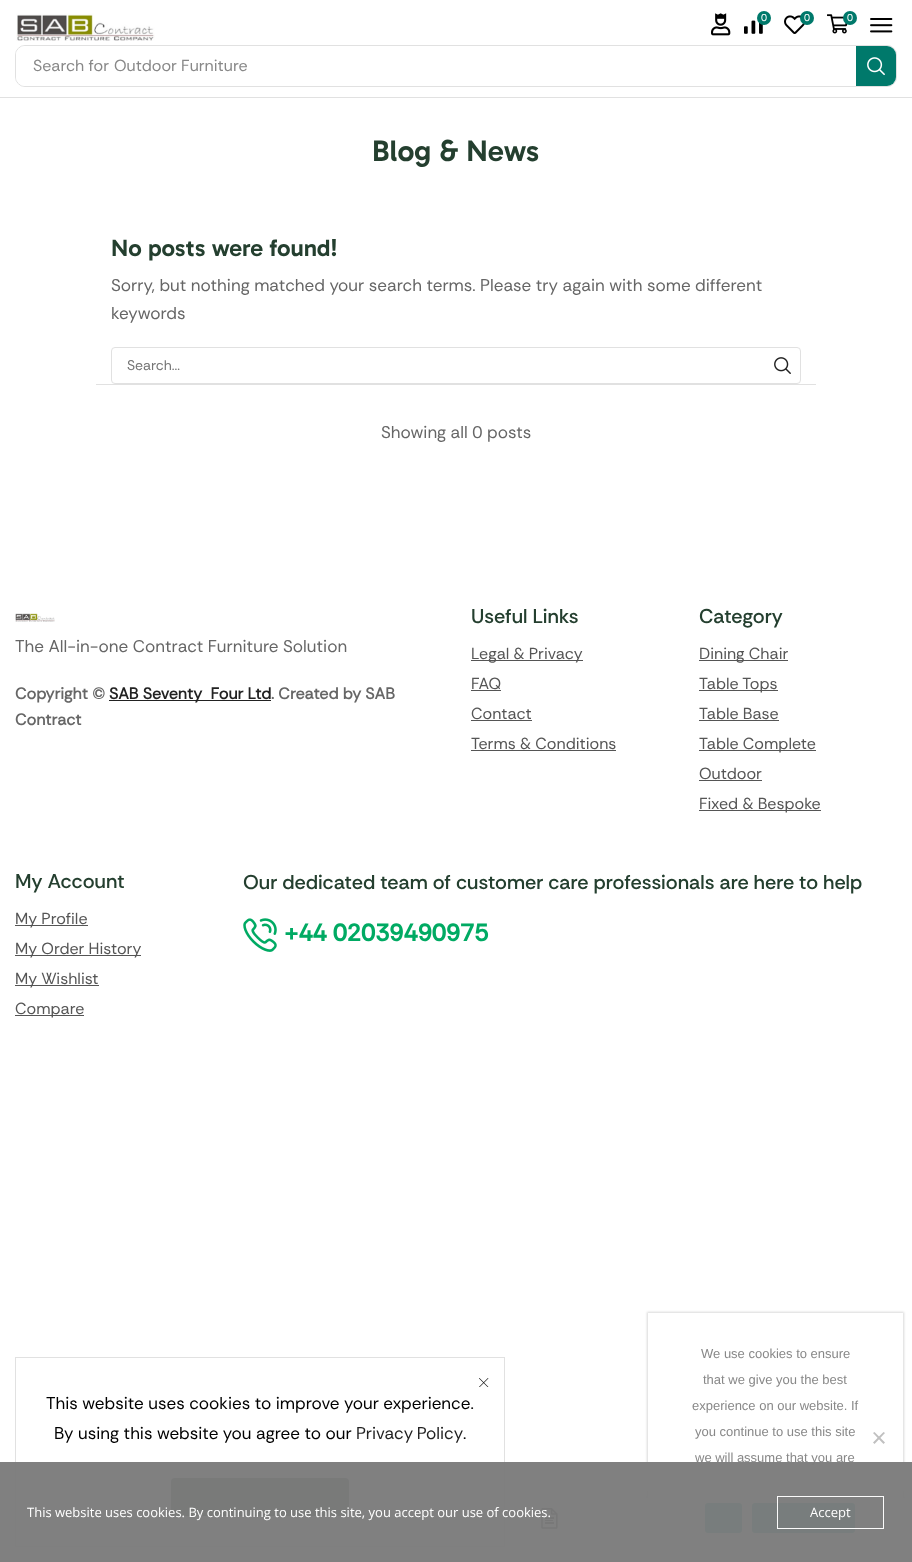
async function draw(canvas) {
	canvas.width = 912;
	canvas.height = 1562;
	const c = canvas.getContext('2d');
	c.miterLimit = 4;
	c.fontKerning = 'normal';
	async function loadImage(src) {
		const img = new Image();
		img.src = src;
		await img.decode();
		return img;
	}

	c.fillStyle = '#fff';
	c.fillRect(0, 0, 912, 1562);
	c.fillStyle = '#e1e1e1';
	c.fillRect(0, 97, 912, 1);
	c.drawImage(await loadImage('img1.png'), 16, 13, 139, 28);
	c.drawImage(await loadImage('img2.png'), 711, 13, 20, 23);
	c.drawImage(await loadImage('img3.png'), 744, 20, 19, 14);
	c.fillStyle = '#00796b';
	c.beginPath();
	c.arc(764, 18, 7, 0, 2 * Math.PI);
	c.fill();
	c.font = '100 10px Rethink Sans';
	c.fillStyle = '#fff';
	c.fillText('0', 761, 21);
	c.drawImage(await loadImage('img4.png'), 784, 15, 21, 19);
	c.fillStyle = '#00796b';
	c.beginPath();
	c.arc(807, 18, 7, 0, 2 * Math.PI);
	c.fill();
	c.fillStyle = '#fff';
	c.fillText('0', 804, 21);
	c.drawImage(await loadImage('img5.png'), 827, 14, 21, 20);
	c.fillStyle = '#00796b';
	c.beginPath();
	c.arc(850, 18, 7, 0, 2 * Math.PI);
	c.fill();
	c.fillStyle = '#fff';
	c.fillText('0', 847, 21);
	c.drawImage(await loadImage('img6.png'), 870, 18, 23, 15);
	c.beginPath();
	c.roundRect(15.5, 45.5, 881, 41, 9.5);
	c.strokeStyle = '#e1e1e1';
	c.stroke();
	c.beginPath();
	c.roundRect(16, 46, 840, 40, [9, 0, 0, 9]);
	c.fill();
	c.font = '100 16px Rethink Sans';
	c.fillStyle = '#888';
	c.fillText('Search for', 33, 71);
	c.fillText('Outdoor Furniture', 114, 71);
	c.fillStyle = '#00796b';
	c.beginPath();
	c.roundRect(856, 46, 40, 40, [0, 9, 9, 0]);
	c.fill();
	c.drawImage(await loadImage('img7.png'), 867, 57, 18, 19);
	c.font = '600 30px Gabarito';
	c.fillStyle = '#243f2f';
	c.fillText('Blog & News', 372, 161);
	c.font = '600 24px Gabarito';
	c.fillText('No posts were found!', 111, 256);
	c.font = '100 17px Rethink Sans';
	c.fillStyle = '#666';
	c.fillText('Sorry, but nothing matched your search terms. Please try again with some different', 111, 291);
	c.fillText('keywords', 111, 319);
	c.beginPath();
	c.roundRect(111.5, 347.5, 689, 36, 3.5);
	c.stroke();
	c.font = '100 14px Rethink Sans';
	c.fillStyle = '#757575';
	c.fillText('Search...', 127, 370);
	c.drawImage(await loadImage('img8.png'), 774, 357, 17, 17);
	c.fillStyle = '#e1e1e1';
	c.fillRect(96, 384, 720, 1);
	c.font = '100 17px Rethink Sans';
	c.fillStyle = '#666';
	c.fillText('Showing all 0 posts', 381, 438);
	c.save();
	c.beginPath();
	c.rect(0, 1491, 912, 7);
	c.clip();
	c.fillStyle = '#00000026';
	c.filter = 'blur(6px)';
	c.beginPath();
	c.rect(2, 1498, 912, 64);
	c.fill();
	c.filter = 'none';
	c.restore();
	c.fillStyle = '#fff';
	c.fillRect(16, 1489, 488, 9);
	c.strokeRect(15.5, 1357.5, 489, 189);
	c.drawImage(await loadImage('img9.png'), 479, 1378, 10, 9);
	c.fillStyle = '#000';
	c.fillText('This website uses cookies to improve your experience.', 46, 1409);
	c.fillText('By using this website you agree to our', 54, 1439);
	c.wordSpacing = '-1px';
	c.fillStyle = '#222';
	c.fillText('Privacy Policy', 356, 1439);
	c.wordSpacing = '0px';
	c.fillStyle = '#000';
	c.fillText('.', 463, 1439);
	c.fillStyle = '#243f2f';
	c.beginPath();
	c.roundRect(171, 1478, 178, 38, 4);
	c.fill();
	c.drawImage(await loadImage('img10.png'), 541, 1508, 17, 21);
	c.drawImage(await loadImage('img11.png'), 742, 1508, 6, 21);
	c.drawImage(await loadImage('img12.png'), 15, 613, 40, 9);
	c.fillStyle = '#666';
	c.fillText('The All-in-one Contract Furniture Solution', 15, 652);
	c.font = 'bold 16px Rethink Sans';
	c.fillText('Copyright ©', 15, 699);
	c.fillStyle = '#222';
	c.fillRect(109, 700, 162, 1);
	c.fillText('SAB Seventy  Four Ltd', 109, 699);
	c.fillStyle = '#666';
	c.fillText('. Created by SAB', 271, 699);
	c.fillText('Contract', 15, 725);
	c.font = '100 20px "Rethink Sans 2"';
	c.fillStyle = '#243f2f';
	c.fillText('Useful Links', 471, 623);
	c.fillStyle = '#555';
	c.fillRect(471, 660, 112, 1);
	c.font = '100 16px Rethink Sans';
	c.fillText('Legal & Privacy', 471, 659);
	c.fillText('FAQ', 471, 689);
	c.fillRect(471, 690, 30, 1);
	c.fillText('Contact', 471, 719);
	c.fillRect(471, 720, 61, 1);
	c.fillText('Terms & Conditions', 471, 749);
	c.fillRect(471, 750, 145, 1);
	c.font = '100 20px "Rethink Sans 2"';
	c.fillStyle = '#243f2f';
	c.fillText('Category', 699, 623);
	c.fillStyle = '#555';
	c.fillRect(699, 660, 89, 1);
	c.font = '100 16px Rethink Sans';
	c.fillText('Dining Chair', 699, 659);
	c.fillRect(699, 690, 79, 1);
	c.fillText('Table Tops', 699, 689);
	c.fillText('Table Base', 699, 719);
	c.fillRect(699, 720, 80, 1);
	c.fillRect(699, 750, 117, 1);
	c.fillText('Table Complete', 699, 749);
	c.fillText('Outdoor', 699, 779);
	c.fillRect(699, 780, 63, 1);
	c.fillRect(699, 810, 122, 1);
	c.fillText('Fixed & Bespoke', 699, 809);
	c.font = '100 20px "Rethink Sans 2"';
	c.fillStyle = '#243f2f';
	c.fillText('My Account', 15, 888);
	c.fillStyle = '#555';
	c.fillRect(15, 925, 73, 1);
	c.font = '100 16px Rethink Sans';
	c.fillText('My Profile', 15, 924);
	c.fillRect(15, 955, 126, 1);
	c.fillText('My Order History', 15, 954);
	c.fillRect(15, 985, 84, 1);
	c.fillText('My Wishlist', 15, 984);
	c.fillRect(15, 1015, 69, 1);
	c.fillText('Compare', 15, 1014);
	c.font = '100 20px "Rethink Sans 2"';
	c.fillStyle = '#243f2f';
	c.fillText('Our dedicated team of customer care professionals are here to help', 243, 889);
	c.drawImage(await loadImage('img13.png'), 243, 918, 34, 34);
	c.font = 'bold 24px "Rethink Sans 2"';
	c.fillStyle = '#00aa63';
	c.fillText('+44 02039490975', 284, 941);
	c.save();
	c.beginPath();
	c.moveTo(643, 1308);
	c.lineTo(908, 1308);
	c.lineTo(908, 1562);
	c.lineTo(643, 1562);
	c.closePath();
	c.moveTo(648, 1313);
	c.lineTo(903, 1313);
	c.lineTo(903, 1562);
	c.lineTo(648, 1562);
	c.closePath();
	c.clip('evenodd');
	c.fillStyle = '#00000026';
	c.filter = 'blur(1px)';
	c.beginPath();
	c.rect(647, 1312, 257, 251);
	c.fill();
	c.filter = 'none';
	c.restore();
	c.fillStyle = '#ffffffe6';
	c.fillRect(648, 1489, 255, 40);
	c.font = '13px Liberation Sans';
	c.fillStyle = '#888';
	for (const [text, x, y] of [
		['We use cookies to ensure', 701, 1358],
		['that we give you the best', 703, 1384],
		['experience on our website. If', 692, 1410],
		['you continue to use this site', 695, 1436],
		['we will assume that you are', 695, 1462],
	]) {
		c.fillText(text, x, y);
	}
	c.fillStyle = '#c0c0c0';
	c.beginPath();
	c.moveTo(883.5, 1432);
	c.lineTo(885, 1433);
	c.lineTo(874.5, 1444);
	c.lineTo(873, 1442.5);
	c.closePath();
	c.fill();
	c.beginPath();
	c.moveTo(873, 1433);
	c.lineTo(874.5, 1432);
	c.lineTo(885, 1442.5);
	c.lineTo(883.5, 1444);
	c.closePath();
	c.fill();
	c.fillStyle = '#00a99d';
	c.beginPath();
	c.roundRect(705, 1503, 37, 30, 3);
	c.fill();
	c.beginPath();
	c.roundRect(752, 1503, 103, 30, 3);
	c.fill();
	c.fillStyle = '#7c7c7cf7';
	c.fillRect(0, 1462, 912, 100);
	c.font = '13px Open Sans';
	c.fillStyle = '#fff';
	c.fillText('This website uses cookies. By continuing to use this site, you accept our use of cookies.', 27, 1517);
	c.strokeStyle = '#fffffff7';
	c.strokeRect(777.5, 1496.5, 106, 32);
	c.fillText('Accept', 810, 1517);
}

draw(document.querySelector('canvas'));
